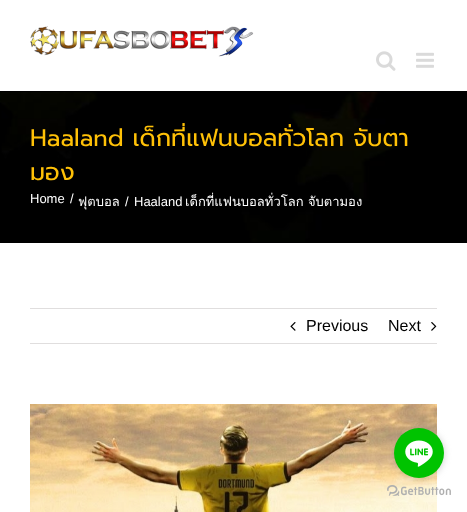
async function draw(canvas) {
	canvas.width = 467;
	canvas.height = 512;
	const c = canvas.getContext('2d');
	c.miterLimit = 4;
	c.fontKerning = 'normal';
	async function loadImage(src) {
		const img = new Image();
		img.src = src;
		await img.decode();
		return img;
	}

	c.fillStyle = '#fff';
	c.fillRect(0, 0, 467, 512);
	c.drawImage(await loadImage('img1.png'), 30, 26, 224, 31);
	c.drawImage(await loadImage('img2.png'), 376, 51, 20, 20);
	c.drawImage(await loadImage('img3.png'), 416, 52, 18, 16);
	c.drawImage(await loadImage('img4.png'), 0, 92, 467, 150);
	c.fillStyle = '#000';
	c.fillRect(0, 91, 467, 1);
	c.fillRect(0, 242, 467, 1);
	c.font = '24px Prompt';
	c.fillStyle = '#ffc107';
	c.fillText('Haaland เด็กที่แฟนบอลทั่วโลก จับตา', 30, 146);
	c.fillText('มอง', 30, 180);
	c.font = '13px Liberation Sans';
	c.fillStyle = '#fff';
	c.fillText('Home', 30, 203);
	c.fillText('/', 70, 203);
	c.font = '13px Loma';
	c.fillText('ฟุตบอล', 78, 206);
	c.font = '13px Liberation Sans';
	c.fillText('/', 125, 206);
	c.fillText('Haaland', 134, 206);
	c.font = '13px Loma';
	c.fillText('เด็กที่แฟนบอลทั่วโลก จับตามอง', 185, 206);
	c.fillStyle = '#e0dede';
	c.fillRect(30, 308, 407, 1);
	c.fillRect(30, 343, 407, 1);
	c.drawImage(await loadImage('img5.png'), 290, 322, 6, 9);
	c.font = '16px Liberation Sans';
	c.fillStyle = '#000';
	c.fillText('Previous', 306, 331);
	c.fillText('Next', 388, 331);
	c.drawImage(await loadImage('img6.png'), 431, 322, 6, 9);
	c.drawImage(await loadImage('img7.png'), 30, 404, 407, 108);
	c.drawImage(await loadImage('img9.png'), 387, 485, 64, 11);
	c.fillStyle = '#88888866';
	c.filter = 'blur(3.5px)';
	c.beginPath();
	c.roundRect(394, 429, 50, 50, 25);
	c.fill();
	c.filter = 'none';
	c.fillStyle = '#00c300';
	c.beginPath();
	c.arc(419, 453, 25, 0, 2 * Math.PI);
	c.fill();
	c.drawImage(await loadImage('img8.png'), 405, 440, 28, 27);
}

draw(document.querySelector('canvas'));
